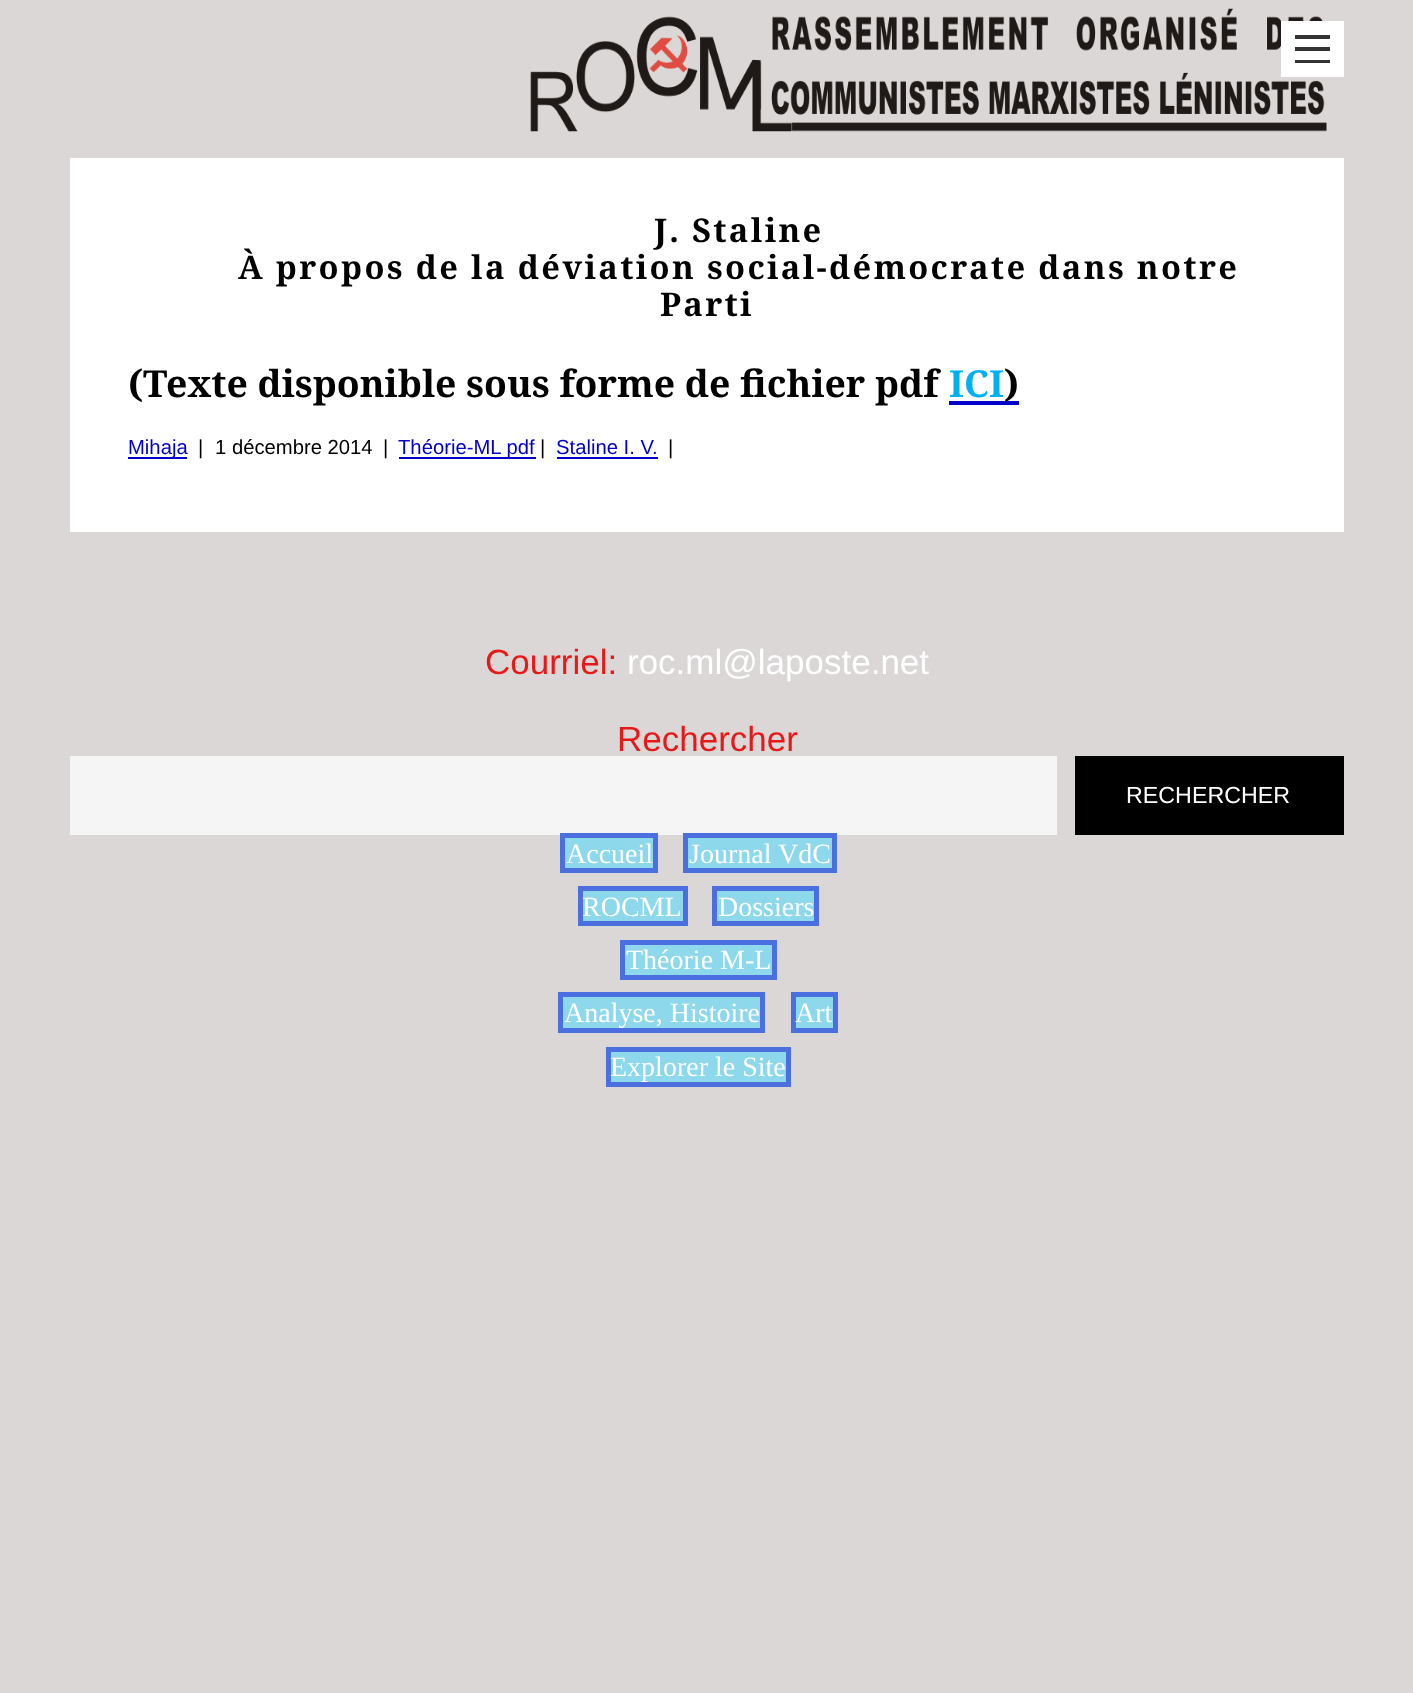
async function draw(canvas) {
	canvas.width = 1413;
	canvas.height = 1693;
	const c = canvas.getContext('2d');
	c.miterLimit = 4;
	c.fontKerning = 'normal';
	async function loadImage(src) {
		const img = new Image();
		img.src = src;
		await img.decode();
		return img;
	}

	c.fillStyle = '#dbd7d7';
	c.fillRect(0, 0, 1413, 1693);
	c.drawImage(await loadImage('img1.png'), 530, 8, 797, 124);
	c.fillStyle = '#fff';
	c.fillRect(1295, 39, 35, 21);
	c.fillStyle = '#333';
	c.fillRect(1295, 60, 35, 3);
	c.strokeStyle = '#fff';
	c.lineWidth = 14;
	c.strokeRect(1288, 28, 49, 42);
	for (const [x, y, w, h, color] of [
		[1295, 35, 35, 4, '#333'],
		[1295, 47, 35, 4, '#333'],
		[70, 158, 1274, 374, '#fff'],
	]) {
		c.fillStyle = color;
		c.fillRect(x, y, w, h);
	}
	c.letterSpacing = '2.33px';
	c.font = 'bold 32.7px Noto Serif';
	c.fillStyle = '#000';
	for (const [text, x, y] of [
		['J. Staline', 654, 242],
		['À propos de la déviation social-démocrate dans notre', 238, 279],
		['Parti', 660, 316],
	]) {
		c.fillText(text, x, y);
	}
	c.letterSpacing = '0px';
	c.font = 'bold 37.3px Noto Serif';
	c.fillText('(Texte disponible sous forme de fichier pdf', 128, 397);
	c.fillStyle = '#00b0f0';
	c.fillText('ICI', 949, 397);
	c.fillStyle = '#0000c8';
	c.fillRect(949, 401, 70, 4);
	c.fillStyle = '#000';
	c.fillText(')', 1004, 397);
	c.fillStyle = '#0000c8';
	c.fillRect(128, 457, 59, 2);
	c.font = '20.25px Liberation Sans';
	c.fillText('Mihaja', 128, 454);
	c.fillStyle = '#000';
	for (const [text, x, y] of [
		['|', 198, 454],
		['1 décembre 2014', 215, 454],
		['|', 383, 454],
	]) {
		c.fillText(text, x, y);
	}
	c.fillStyle = '#0000c8';
	c.fillRect(399, 457, 137, 2);
	c.fillText('Théorie-ML pdf', 398, 454);
	c.fillStyle = '#000';
	c.fillText('|', 540, 454);
	c.fillStyle = '#0000c8';
	c.fillText('Staline I. V.', 556, 454);
	c.fillRect(557, 457, 101, 2);
	c.fillStyle = '#000';
	c.fillText('|', 668, 454);
	c.font = '35px Liberation Sans';
	c.fillStyle = '#e61919';
	c.fillText('Courriel:', 485, 674);
	c.fillStyle = '#fff';
	c.fillText('roc.ml@laposte.net', 627, 674);
	c.fillStyle = '#e61919';
	c.fillText('Rechercher', 617, 751);
	c.fillStyle = '#f5f5f5';
	c.fillRect(70, 756, 987, 79);
	c.fillStyle = '#000';
	c.fillRect(1075, 756, 269, 79);
	c.font = '23.25px Liberation Sans';
	c.fillStyle = '#fff';
	c.fillText('RECHERCHER', 1126, 803);
	c.fillStyle = '#8dd8eb';
	c.beginPath();
	c.rect(562.5, 835.5, 93, 35);
	c.fill();
	c.strokeStyle = '#4c6fe0';
	c.lineWidth = 5;
	c.stroke();
	c.font = '28px Liberation Serif';
	c.fillStyle = '#fff';
	c.fillText('Accueil', 566, 863);
	c.fillStyle = '#8dd8eb';
	c.beginPath();
	c.rect(685.5, 835.5, 149, 35);
	c.fill();
	c.stroke();
	c.fillStyle = '#fff';
	c.fillText('Journal VdC', 689, 863);
	c.fillStyle = '#8dd8eb';
	c.beginPath();
	c.rect(580.5, 888.5, 105, 35);
	c.fill();
	c.stroke();
	c.fillStyle = '#fff';
	c.fillText('ROCML', 582, 916);
	c.fillStyle = '#8dd8eb';
	c.beginPath();
	c.rect(714.5, 888.5, 102, 35);
	c.fill();
	c.stroke();
	c.fillStyle = '#fff';
	c.fillText('Dossiers', 718, 916);
	c.fillStyle = '#8dd8eb';
	c.beginPath();
	c.rect(622.5, 942.5, 152, 35);
	c.fill();
	c.stroke();
	c.fillStyle = '#fff';
	c.fillText('Théorie M-L', 626, 969);
	c.fillStyle = '#8dd8eb';
	c.beginPath();
	c.rect(560.5, 994.5, 202, 36);
	c.fill();
	c.stroke();
	c.fillStyle = '#fff';
	c.fillText('Analyse, Histoire', 564, 1022);
	c.fillStyle = '#8dd8eb';
	c.beginPath();
	c.rect(793.5, 994.5, 42, 36);
	c.fill();
	c.stroke();
	c.fillStyle = '#fff';
	c.fillText('Art', 795, 1022);
	c.fillStyle = '#8dd8eb';
	c.beginPath();
	c.rect(608.5, 1049.5, 180, 35);
	c.fill();
	c.stroke();
	c.fillStyle = '#fff';
	c.fillText('Explorer le Site', 610, 1076);
}

draw(document.querySelector('canvas'));
